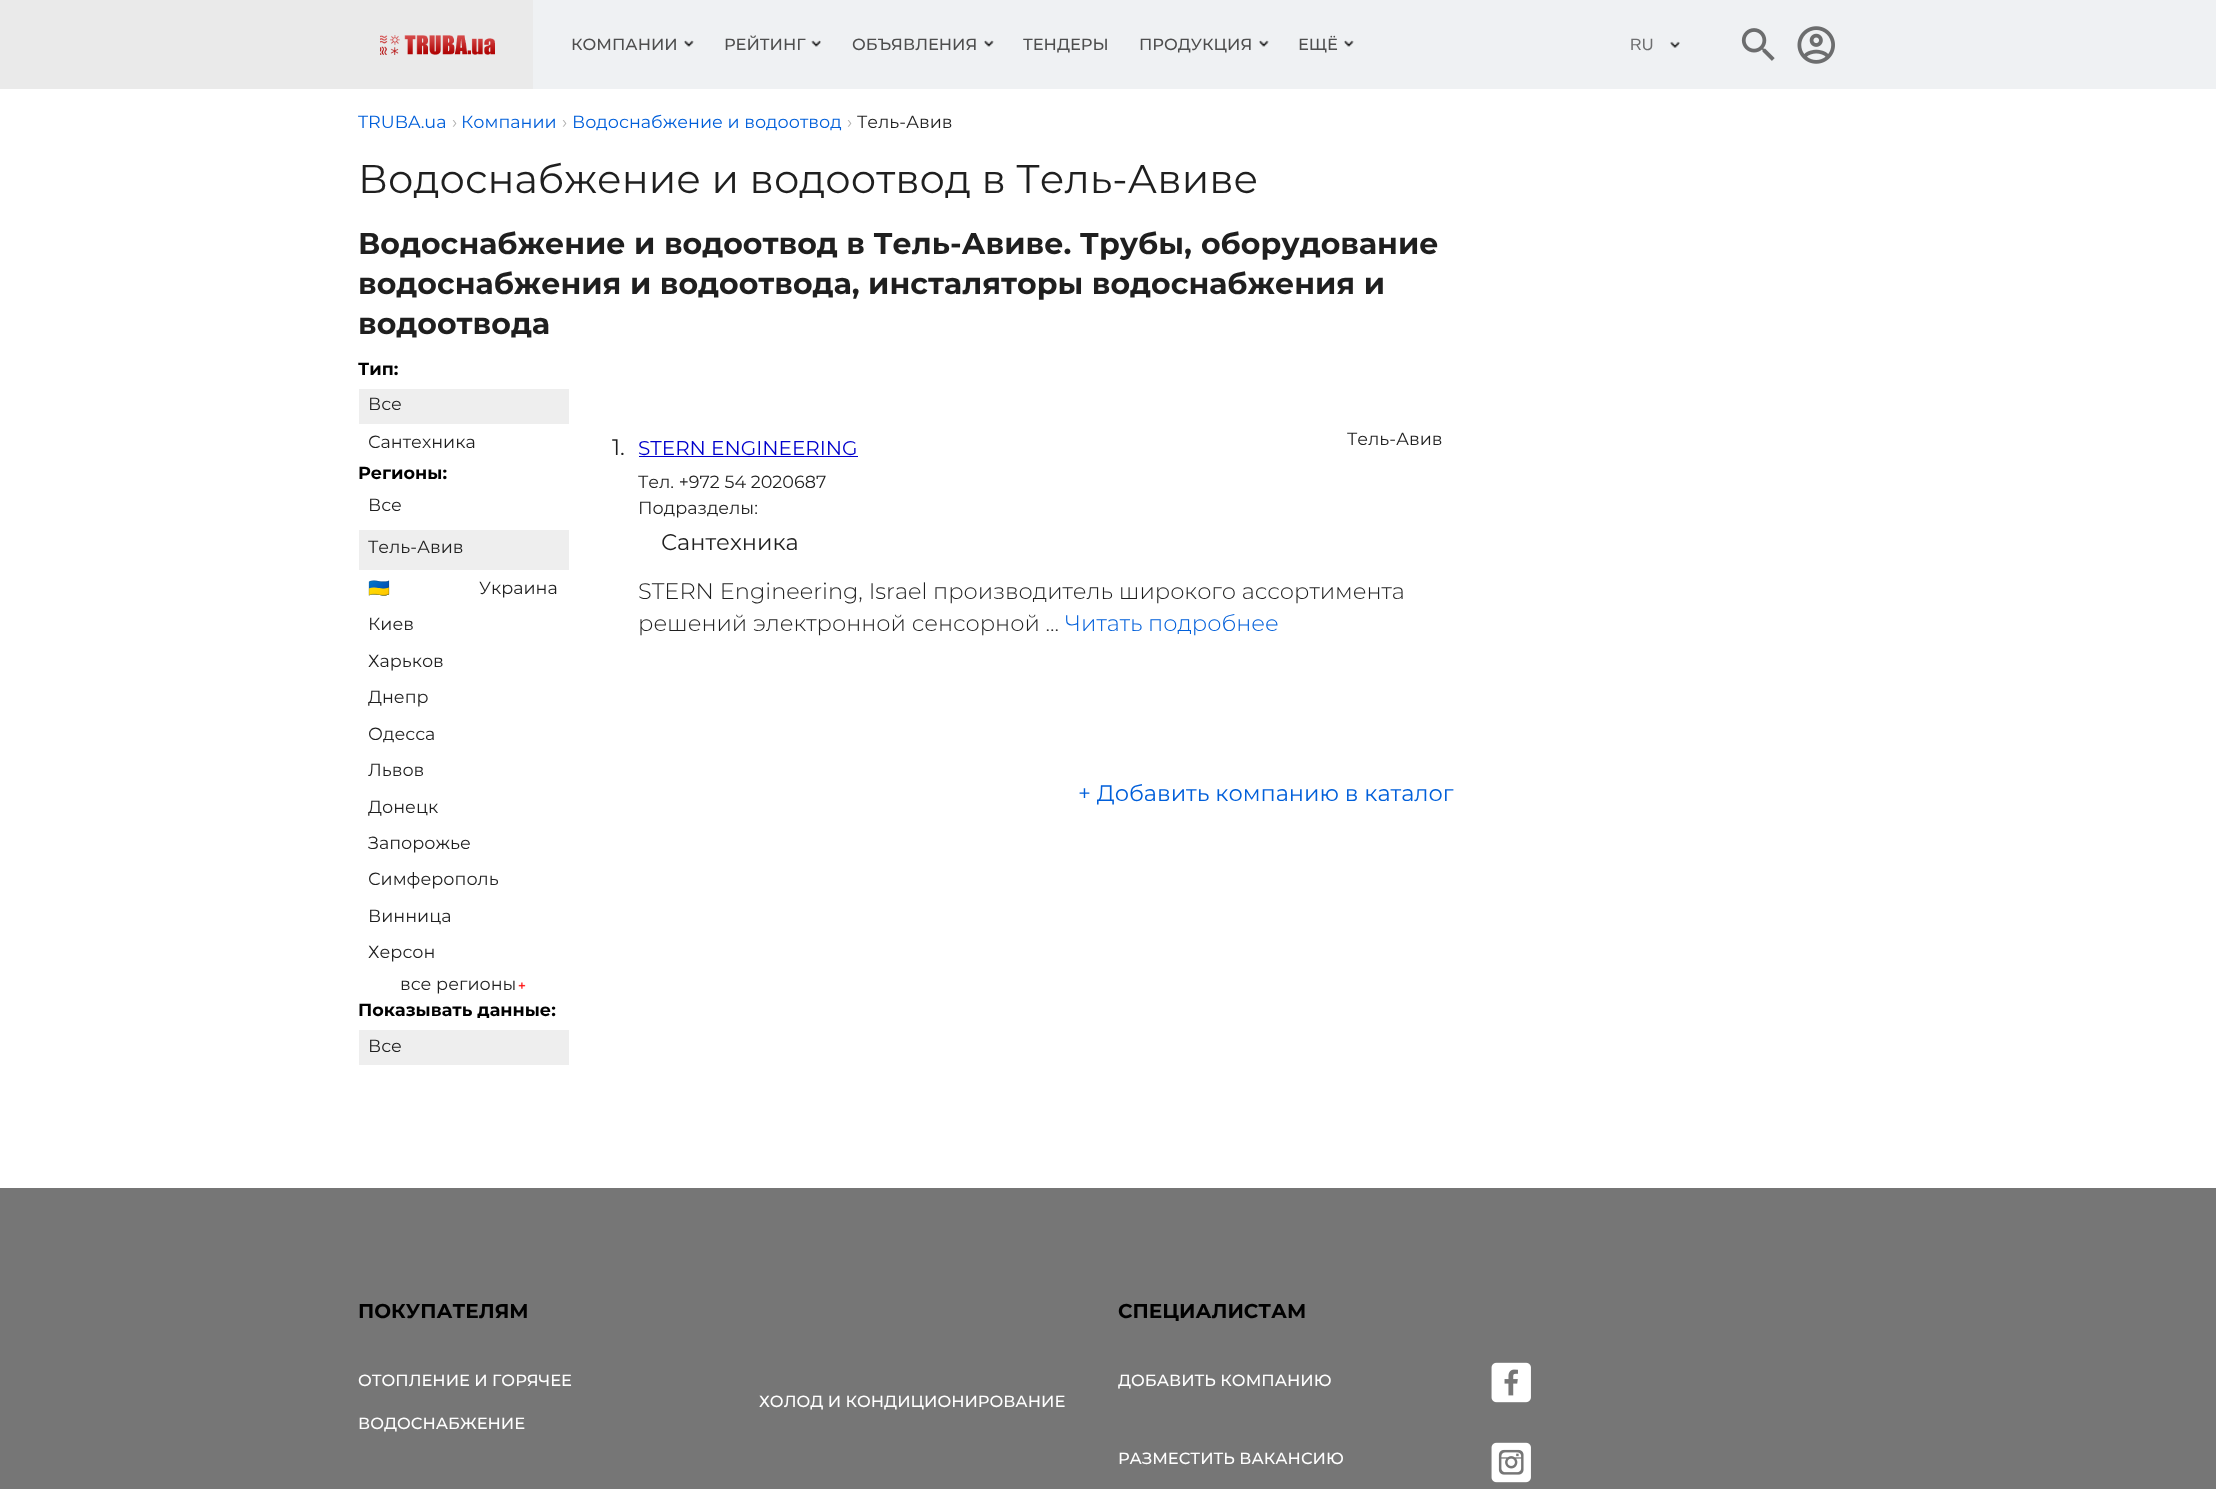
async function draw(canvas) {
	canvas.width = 2216;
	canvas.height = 1489;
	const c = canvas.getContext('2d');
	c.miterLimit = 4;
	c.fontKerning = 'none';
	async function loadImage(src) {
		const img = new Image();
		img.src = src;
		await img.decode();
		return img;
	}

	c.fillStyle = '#fff';
	c.fillRect(0, 0, 2216, 1489);
	c.fillStyle = '#eff1f3';
	c.fillRect(533, 0, 1683, 89);
	c.fillStyle = '#eaeaea';
	c.fillRect(0, 0, 533, 89);
	c.drawImage(await loadImage('img1.png'), 380, 35, 115, 20);
	c.font = '500 16.25px Montserrat';
	c.fillStyle = '#4e4e4e';
	c.fillText('КОМПАНИИ', 571, 50);
	c.drawImage(await loadImage('img2.png'), 684, 40, 10, 7);
	c.fillText('РЕЙТИНГ', 724, 50);
	c.drawImage(await loadImage('img3.png'), 811, 40, 10, 7);
	c.fillText('ОБЪЯВЛЕНИЯ', 852, 50);
	c.drawImage(await loadImage('img2.png'), 984, 40, 10, 7);
	c.fillText('ТЕНДЕРЫ', 1023, 50);
	c.fillText('ПРОДУКЦИЯ', 1139, 50);
	c.drawImage(await loadImage('img4.png'), 1259, 40, 10, 7);
	c.fillText('ЕЩЁ', 1298, 50);
	c.drawImage(await loadImage('img4.png'), 1344, 40, 10, 7);
	c.font = '16.25px Liberation Sans';
	c.fillStyle = '#6e6f70';
	c.fillText('RU', 1630, 50);
	c.drawImage(await loadImage('img5.png'), 1670, 41, 10, 7);
	c.drawImage(await loadImage('img6.png'), 1741, 28, 34, 33);
	c.drawImage(await loadImage('img7.png'), 1797, 26, 38, 38);
	c.font = '17.6px Montserrat';
	c.fillStyle = '#005fda';
	c.fillText('TRUBA.ua', 358, 128);
	c.fillStyle = '#b3b3b3';
	c.fillText('›', 452, 128);
	c.fillStyle = '#005fda';
	c.fillText('Компании', 461, 128);
	c.fillStyle = '#b3b3b3';
	c.fillText('›', 562, 128);
	c.fillStyle = '#005fda';
	c.fillText('Водоснабжение и водоотвод', 572, 128);
	c.fillStyle = '#b3b3b3';
	c.fillText('›', 847, 128);
	c.fillStyle = '#1f1f1f';
	c.fillText('Тель-Авив', 857, 128);
	c.font = '40px Montserrat';
	c.fillText('Водоснабжение и водоотвод в Тель-Авиве', 358, 193);
	c.font = 'bold 30px Montserrat';
	for (const [text, x, y] of [
		['Водоснабжение и водоотвод в Тель-Авиве. Трубы,', 358, 254],
		['оборудование', 1201, 254],
		['водоснабжения и водоотвода, инсталяторы водоснабжения и', 358, 294],
		['водоотвода', 358, 334],
	]) {
		c.fillText(text, x, y);
	}
	c.font = 'bold 17.6px Montserrat';
	c.fillStyle = '#000';
	c.fillText('Тип:', 358, 375);
	c.fillStyle = '#eee';
	c.fillRect(359, 389, 210, 35);
	c.font = '17.6px Montserrat';
	c.fillStyle = '#1f1f1f';
	c.fillText('Все', 368, 410);
	c.fillText('Сантехника', 368, 448);
	c.font = 'bold 17.6px Montserrat';
	c.fillStyle = '#000';
	c.fillText('Регионы:', 358, 479);
	c.font = '17.6px Montserrat';
	c.fillStyle = '#1f1f1f';
	c.fillText('Все', 368, 511);
	c.fillStyle = '#eee';
	c.fillRect(359, 530, 210, 40);
	c.fillStyle = '#1f1f1f';
	c.fillText('Тель-Авив', 368, 553);
	c.font = '17.6px Noto Color Emoji';
	c.fillText('🇺🇦', 368, 594);
	c.font = '17.6px Montserrat';
	for (const [text, x, y] of [
		['Украина', 479, 594],
		['Киев', 368, 630],
		['Харьков', 368, 667],
		['Днепр', 368, 703],
		['Одесса', 368, 740],
		['Львов', 368, 776],
		['Донецк', 368, 813],
		['Запорожье', 368, 849],
		['Симферополь', 368, 885],
		['Винница', 368, 922],
		['Херсон', 368, 958],
		['все регионы', 400, 990],
	]) {
		c.fillText(text, x, y);
	}
	c.drawImage(await loadImage('img8.png'), 518, 982, 8, 7);
	c.font = 'bold 17.6px Montserrat';
	c.fillStyle = '#000';
	c.fillText('Показывать данные:', 358, 1016);
	c.fillStyle = '#eee';
	c.fillRect(359, 1030, 210, 35);
	c.font = '17.6px Montserrat';
	c.fillStyle = '#1f1f1f';
	c.fillText('Все', 368, 1052);
	c.font = '22.5px Montserrat';
	c.fillText('1.', 612, 455);
	c.font = '20px Montserrat';
	c.fillStyle = '#00c';
	c.fillText('STERN ENGINEERING', 638, 455);
	c.fillRect(639, 456, 219, 1);
	c.font = '17.6px Montserrat';
	c.fillStyle = '#1f1f1f';
	for (const [text, x, y] of [
		['Тель-Авив', 1347, 445],
		['Тел. +972 54 2020687', 638, 488],
		['Подразделы:', 638, 514],
	]) {
		c.fillText(text, x, y);
	}
	c.font = '22.5px Montserrat';
	c.fillText('Сантехника', 661, 550);
	c.font = '300 22.5px Montserrat';
	c.fillText('STERN Engineering, Israel производитель широкого ассортимента', 638, 599);
	c.fillText('решений электронной сенсорной ...', 638, 631);
	c.fillStyle = '#005fda';
	c.fillText('Читать подробнее', 1065, 631);
	c.font = '22.5px Montserrat';
	c.fillText('+ Добавить компанию в каталог', 1078, 801);
	c.fillStyle = '#767676';
	c.fillRect(0, 1188, 2216, 301);
	c.font = 'bold 20px Montserrat';
	c.fillStyle = '#000';
	c.fillText('ПОКУПАТЕЛЯМ', 358, 1318);
	c.font = '500 16.25px Montserrat';
	c.fillStyle = '#fff';
	for (const [text, x, y] of [
		['ОТОПЛЕНИЕ И ГОРЯЧЕЕ', 358, 1386],
		['ВОДОСНАБЖЕНИЕ', 358, 1429],
		['ХОЛОД И КОНДИЦИОНИРОВАНИЕ', 759, 1407],
	]) {
		c.fillText(text, x, y);
	}
	c.font = 'bold 20px Montserrat';
	c.fillStyle = '#000';
	c.fillText('СПЕЦИАЛИСТАМ', 1118, 1318);
	c.font = '500 16.25px Montserrat';
	c.fillStyle = '#fff';
	c.fillText('ДОБАВИТЬ КОМПАНИЮ', 1118, 1386);
	c.fillText('РАЗМЕСТИТЬ ВАКАНСИЮ', 1118, 1464);
	c.drawImage(await loadImage('img9.png'), 1491, 1362, 40, 41);
	c.drawImage(await loadImage('img10.png'), 1491, 1442, 40, 41);
}

draw(document.querySelector('canvas'));
